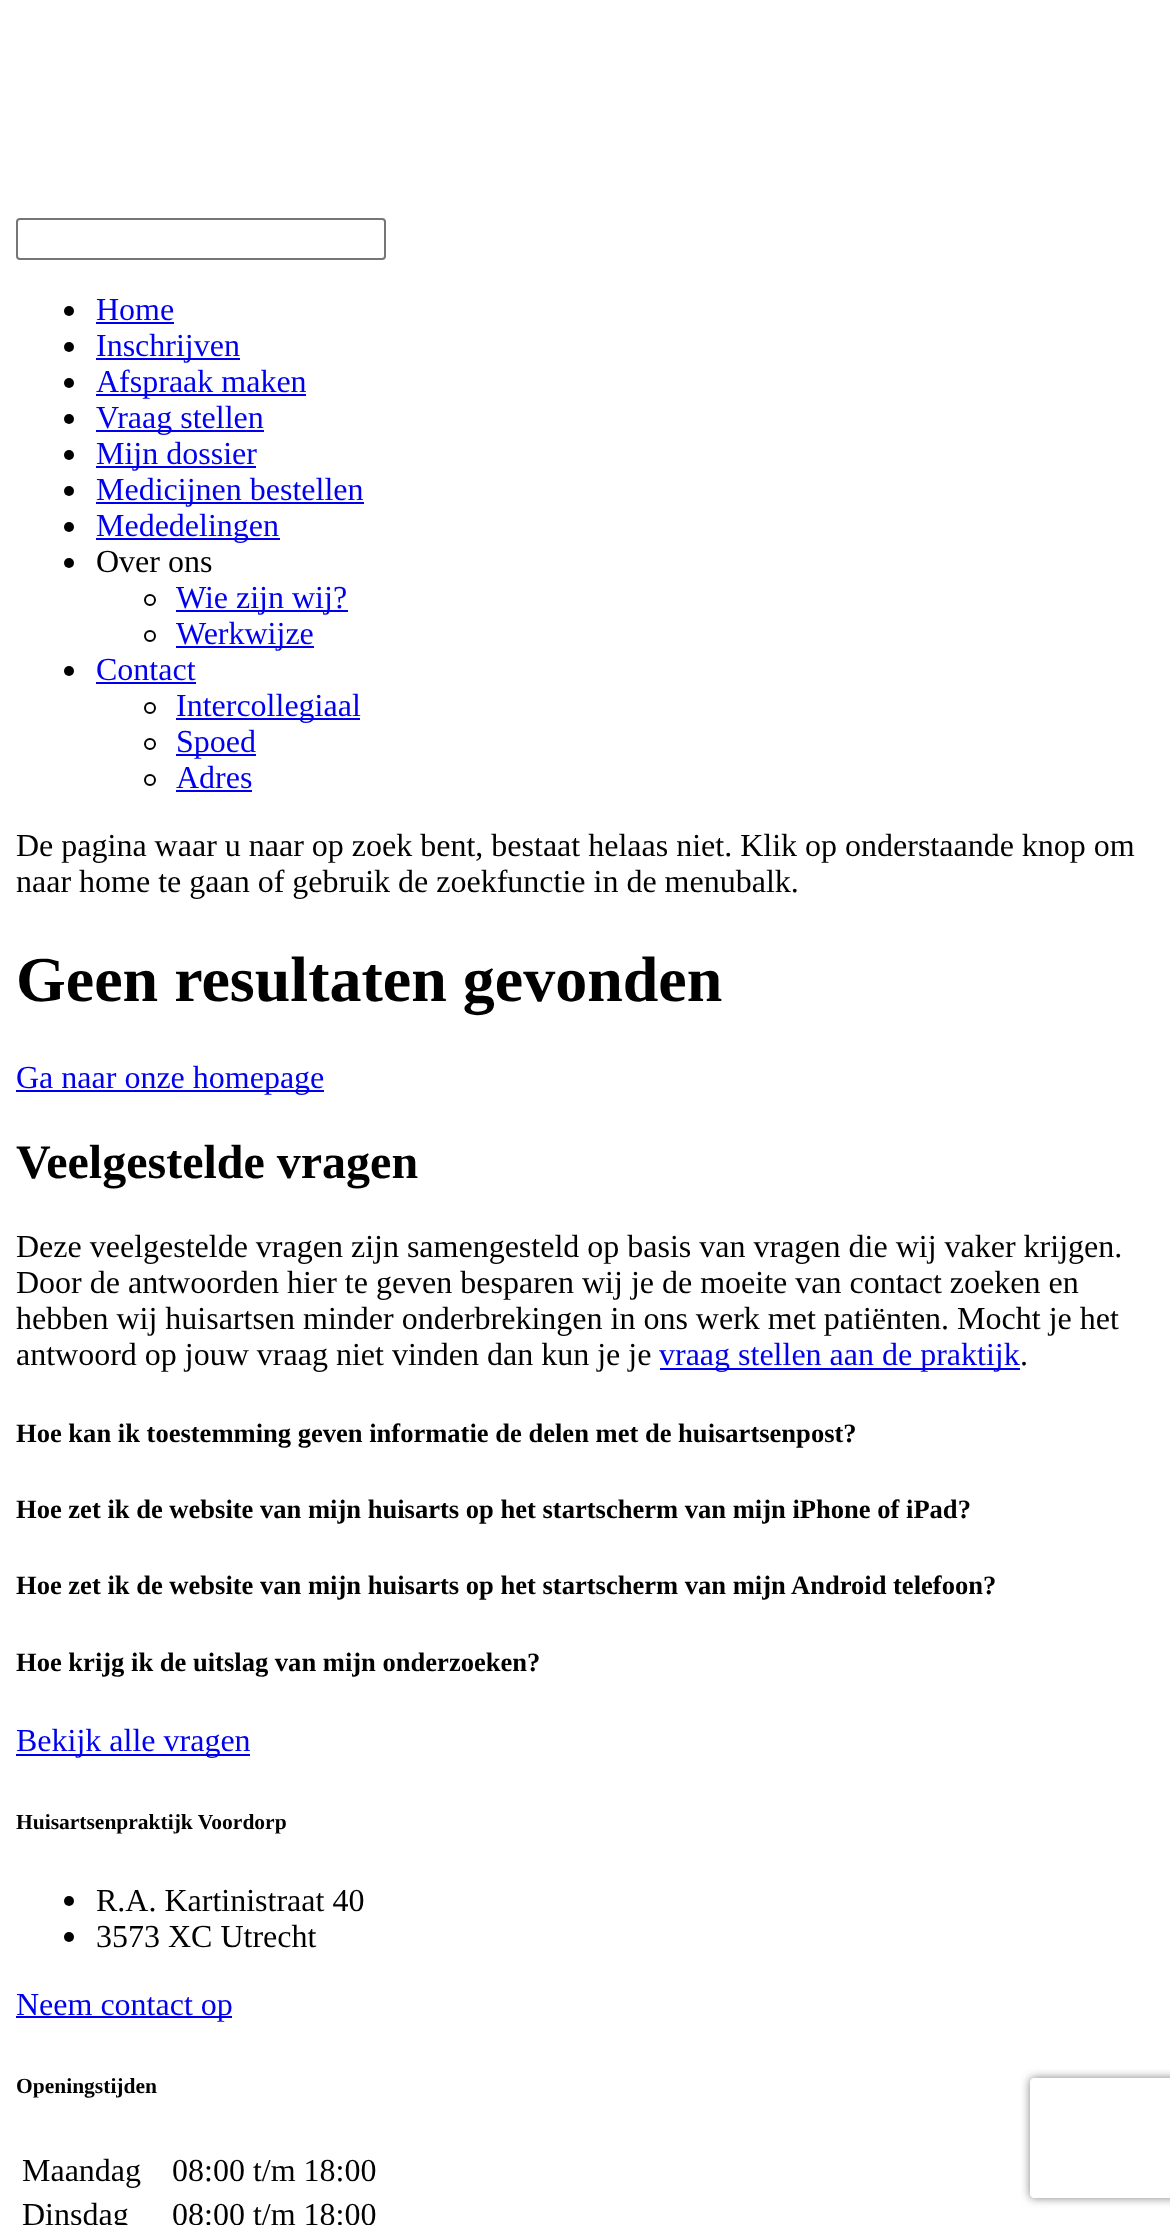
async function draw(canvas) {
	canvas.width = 1170;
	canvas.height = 2225;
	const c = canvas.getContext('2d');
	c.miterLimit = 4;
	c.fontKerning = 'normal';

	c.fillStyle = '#fff';
	c.fillRect(0, 0, 1170, 2225);
	c.beginPath();
	c.roundRect(17, 219, 368, 40, 3);
	c.strokeStyle = '#767676';
	c.lineWidth = 2;
	c.stroke();
	c.fillStyle = '#000';
	c.beginPath();
	c.arc(69, 311, 5, 0, 2 * Math.PI);
	c.fill();
	c.font = '32px Liberation Serif';
	c.fillStyle = '#00e';
	c.fillText('Home', 96, 320);
	c.fillRect(96, 322, 78, 2);
	c.fillStyle = '#000';
	c.beginPath();
	c.arc(69, 347, 5, 0, 2 * Math.PI);
	c.fill();
	c.fillStyle = '#00e';
	c.fillRect(96, 358, 144, 2);
	c.fillText('Inschrijven', 96, 356);
	c.fillStyle = '#000';
	c.beginPath();
	c.arc(69, 383, 5, 0, 2 * Math.PI);
	c.fill();
	c.fillStyle = '#00e';
	c.fillRect(96, 394, 210, 2);
	c.fillText('Afspraak maken', 96, 392);
	c.fillStyle = '#000';
	c.beginPath();
	c.arc(69, 419, 5, 0, 2 * Math.PI);
	c.fill();
	c.fillStyle = '#00e';
	c.fillRect(96, 430, 168, 2);
	c.fillText('Vraag stellen', 96, 428);
	c.fillStyle = '#000';
	c.beginPath();
	c.arc(69, 455, 5, 0, 2 * Math.PI);
	c.fill();
	c.fillStyle = '#00e';
	c.fillRect(96, 466, 160, 2);
	c.fillText('Mijn dossier', 96, 464);
	c.fillStyle = '#000';
	c.beginPath();
	c.arc(69, 491, 5, 0, 2 * Math.PI);
	c.fill();
	c.fillStyle = '#00e';
	c.fillRect(96, 502, 268, 2);
	c.fillText('Medicijnen bestellen', 96, 500);
	c.fillStyle = '#000';
	c.beginPath();
	c.arc(69, 527, 5, 0, 2 * Math.PI);
	c.fill();
	c.fillStyle = '#00e';
	c.fillRect(96, 538, 184, 2);
	c.fillText('Mededelingen', 96, 536);
	c.fillStyle = '#000';
	c.beginPath();
	c.arc(69, 563, 5, 0, 2 * Math.PI);
	c.fill();
	c.fillText('Over ons', 96, 572);
	c.beginPath();
	c.arc(150, 600, 5, 0, 2 * Math.PI);
	c.strokeStyle = '#000';
	c.stroke();
	c.fillStyle = '#00e';
	c.fillRect(176, 610, 172, 2);
	c.fillText('Wie zijn wij?', 176, 608);
	c.beginPath();
	c.arc(150, 636, 5, 0, 2 * Math.PI);
	c.stroke();
	c.fillRect(176, 646, 138, 2);
	c.fillText('Werkwijze', 176, 644);
	c.fillStyle = '#000';
	c.beginPath();
	c.arc(69, 671, 5, 0, 2 * Math.PI);
	c.fill();
	c.fillStyle = '#00e';
	c.fillText('Contact', 96, 680);
	c.fillRect(96, 682, 100, 2);
	c.beginPath();
	c.arc(150, 708, 5, 0, 2 * Math.PI);
	c.stroke();
	c.fillRect(176, 718, 184, 2);
	c.fillText('Intercollegiaal', 176, 716);
	c.beginPath();
	c.arc(150, 744, 5, 0, 2 * Math.PI);
	c.stroke();
	c.fillRect(176, 754, 80, 2);
	c.fillText('Spoed', 176, 752);
	c.beginPath();
	c.arc(150, 780, 5, 0, 2 * Math.PI);
	c.stroke();
	c.fillText('Adres', 176, 788);
	c.fillRect(176, 790, 76, 2);
	c.fillStyle = '#000';
	c.fillText('De pagina waar u naar op zoek bent, bestaat helaas niet. Klik op onderstaande knop om', 16, 856);
	c.fillText('naar home te gaan of gebruik de zoekfunctie in de menubalk.', 16, 892);
	c.font = 'bold 64px Liberation Serif';
	c.fillText('Geen resultaten gevonden', 16, 1001);
	c.fillStyle = '#00e';
	c.fillRect(16, 1090, 308, 2);
	c.font = '32px Liberation Serif';
	c.fillText('Ga naar onze homepage', 16, 1088);
	c.font = 'bold 48px Liberation Serif';
	c.fillStyle = '#000';
	c.fillText('Veelgestelde vragen', 16, 1178);
	c.font = '32px Liberation Serif';
	for (const [text, x, y] of [
		['Deze veelgestelde vragen zijn samengesteld op basis van vragen die wij vaker krijgen.', 16, 1257],
		['Door de antwoorden hier te geven besparen wij je de moeite van contact zoeken en', 16, 1293],
		['hebben wij huisartsen minder onderbrekingen in ons werk met patiënten. Mocht je het', 16, 1329],
		['antwoord op jouw vraag niet vinden dan kun je je', 16, 1365],
	]) {
		c.fillText(text, x, y);
	}
	c.fillStyle = '#00e';
	c.fillRect(660, 1368, 360, 2);
	c.fillText('vraag stellen aan de praktijk', 659, 1365);
	c.fillStyle = '#000';
	c.fillText('.', 1020, 1365);
	c.font = 'bold 26.55px Liberation Serif';
	for (const [text, x, y] of [
		['Hoe kan ik toestemming geven informatie de delen met de huisartsenpost?', 16, 1442],
		['Hoe zet ik de website van mijn huisarts op het startscherm van mijn iPhone of iPad?', 16, 1518],
		['Hoe zet ik de website van mijn huisarts op het startscherm van mijn Android telefoon?', 16, 1594],
		['Hoe krijg ik de uitslag van mijn onderzoeken?', 16, 1671],
	]) {
		c.fillText(text, x, y);
	}
	c.fillStyle = '#00e';
	c.fillRect(16, 1754, 234, 2);
	c.font = '32px Liberation Serif';
	c.fillText('Bekijk alle vragen', 16, 1751);
	c.font = 'bold 21.5px Liberation Serif';
	c.fillStyle = '#000';
	c.fillText('Huisartsenpraktijk Voordorp', 16, 1829);
	c.beginPath();
	c.arc(69, 1901, 5, 0, 2 * Math.PI);
	c.fill();
	c.font = '32px Liberation Serif';
	c.fillText('R.A. Kartinistraat 40', 96, 1911);
	c.beginPath();
	c.arc(69, 1937, 5, 0, 2 * Math.PI);
	c.fill();
	c.fillText('3573 XC Utrecht', 96, 1947);
	c.fillStyle = '#00e';
	c.fillRect(16, 2016, 216, 2);
	c.fillText('Neem contact op', 16, 2015);
	c.font = 'bold 21.5px Liberation Serif';
	c.fillStyle = '#000';
	c.fillText('Openingstijden', 16, 2093);
	c.font = '32px Liberation Serif';
	for (const [text, x, y] of [
		['Maandag', 22, 2181],
		['08:00 t/m 18:00', 172, 2181],
		['Dinsdag', 22, 2225],
		['08:00 t/m 18:00', 172, 2225],
	]) {
		c.fillText(text, x, y);
	}
	c.save();
	c.beginPath();
	c.moveTo(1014, 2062);
	c.lineTo(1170, 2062);
	c.lineTo(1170, 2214);
	c.lineTo(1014, 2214);
	c.closePath();
	c.moveTo(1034, 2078);
	c.lineTo(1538, 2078);
	c.bezierCurveTo(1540, 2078, 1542, 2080, 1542, 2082);
	c.lineTo(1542, 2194);
	c.bezierCurveTo(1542, 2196, 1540, 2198, 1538, 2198);
	c.lineTo(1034, 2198);
	c.bezierCurveTo(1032, 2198, 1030, 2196, 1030, 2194);
	c.lineTo(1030, 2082);
	c.bezierCurveTo(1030, 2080, 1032, 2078, 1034, 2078);
	c.closePath();
	c.clip('evenodd');
	c.fillStyle = '#808080';
	c.filter = 'blur(5px)';
	c.beginPath();
	c.roundRect(1030, 2078, 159, 120, 4);
	c.fill();
	c.filter = 'none';
	c.restore();
}

draw(document.querySelector('canvas'));
